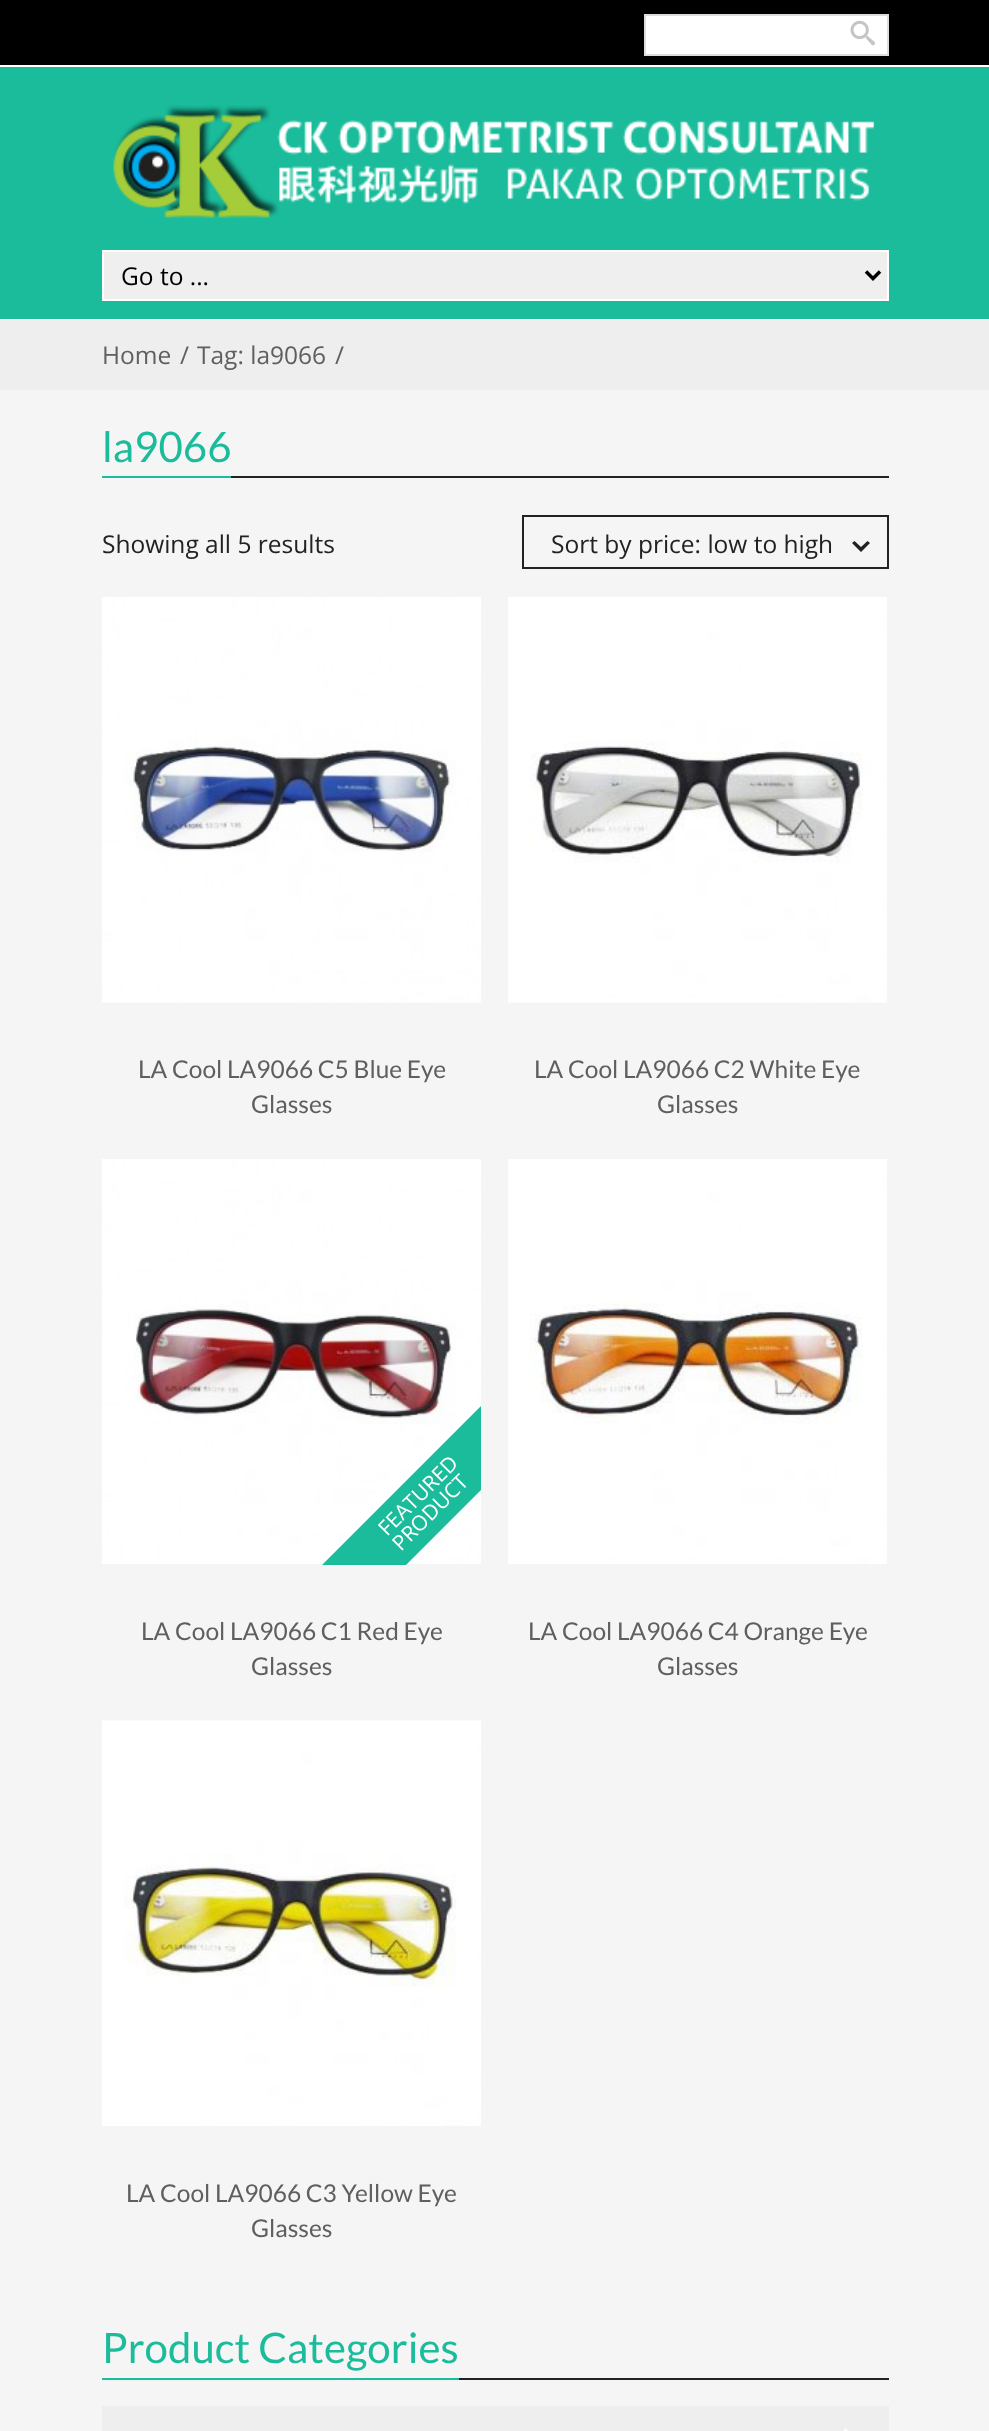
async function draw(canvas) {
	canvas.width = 989;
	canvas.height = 2431;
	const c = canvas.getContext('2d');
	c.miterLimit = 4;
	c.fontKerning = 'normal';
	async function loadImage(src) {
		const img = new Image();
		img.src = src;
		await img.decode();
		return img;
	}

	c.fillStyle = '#f5f5f5';
	c.fillRect(0, 0, 989, 2431);
	c.fillStyle = '#000';
	c.fillRect(0, 0, 989, 65);
	c.fillStyle = '#fff';
	c.beginPath();
	c.rect(645, 15, 243, 40);
	c.fill();
	c.strokeStyle = '#ddd';
	c.lineWidth = 2;
	c.stroke();
	c.drawImage(await loadImage('img1.png'), 850, 20, 25, 26);
	for (const [x, y, w, h, color] of [
		[0, 67, 989, 252, '#1bbc9b'],
		[0, 65, 989, 2, '#fff'],
		[0, 319, 989, 1, '#fff'],
	]) {
		c.fillStyle = color;
		c.fillRect(x, y, w, h);
	}
	c.drawImage(await loadImage('img2.png'), 113, 105, 762, 113);
	c.fillStyle = '#efefef';
	c.beginPath();
	c.rect(103, 251, 785, 49);
	c.fill();
	c.strokeStyle = '#fff';
	c.stroke();
	c.beginPath();
	c.moveTo(866, 271.5);
	c.lineTo(873, 278.5);
	c.lineTo(880, 271.5);
	c.strokeStyle = '#000';
	c.lineWidth = 3.5;
	c.stroke();
	c.font = '24.5px Open Sans';
	c.fillStyle = '#000';
	c.fillText('Go to ...', 121, 285);
	c.fillStyle = '#eee';
	c.fillRect(0, 320, 989, 70);
	c.fillStyle = '#5e605f';
	for (const [text, x, y] of [
		['Home', 102, 364],
		['/', 180, 364],
		['Tag: la9066', 197, 364],
		['/', 335, 364],
	]) {
		c.fillText(text, x, y);
	}
	c.fillStyle = '#222';
	c.fillRect(231, 476, 658, 2);
	c.fillStyle = '#1bbc9b';
	c.fillRect(102, 476, 129, 2);
	c.font = '42px Lato';
	c.fillText('la9066', 102, 462);
	c.font = '24.5px Open Sans';
	c.fillStyle = '#222';
	c.fillText('Showing all 5 results', 102, 553);
	c.strokeStyle = '#222';
	c.lineWidth = 2;
	c.strokeRect(523, 516, 365, 52);
	c.fillText('Sort by price: low to high', 551, 553);
	c.beginPath();
	c.moveTo(852, 543);
	c.lineTo(854.5, 541);
	c.lineTo(861, 547);
	c.lineTo(867.5, 541);
	c.lineTo(870, 543);
	c.lineTo(861, 552);
	c.closePath();
	c.fill();
	c.drawImage(await loadImage('img3.png'), 102, 597, 379, 406);
	c.font = '24.5px Lato';
	c.fillStyle = '#5e605f';
	c.fillText('LA Cool LA9066 C5 Blue Eye', 138, 1078);
	c.fillText('Glasses', 251, 1113);
	c.drawImage(await loadImage('img4.png'), 508, 597, 379, 406);
	c.fillText('LA Cool LA9066 C2 White Eye', 534, 1078);
	c.fillText('Glasses', 657, 1113);
	c.drawImage(await loadImage('img5.png'), 102, 1159, 379, 405);
	c.save();
	c.beginPath();
	c.rect(102, 1159, 379, 406);
	c.clip();
	c.fillStyle = '#1bbc9b';
	c.beginPath();
	c.moveTo(275, 1612);
	c.lineTo(523, 1364);
	c.lineTo(565, 1406);
	c.lineTo(317, 1654);
	c.closePath();
	c.fill();
	c.restore();
	c.font = '21px Open Sans';
	c.fillStyle = '#fff';
	c.save();
	c.translate(387, 1537);
	c.rotate(-45 * Math.PI / 180);
	c.fillText('FEATURED', 0, 0);
	c.restore();
	c.save();
	c.translate(401, 1552);
	c.rotate(-45 * Math.PI / 180);
	c.fillText('PRODUCT', 0, 0);
	c.restore();
	c.font = '24.5px Lato';
	c.fillStyle = '#5e605f';
	c.fillText('LA Cool LA9066 C1 Red Eye', 141, 1640);
	c.fillText('Glasses', 251, 1675);
	c.drawImage(await loadImage('img6.png'), 508, 1159, 379, 405);
	c.fillText('LA Cool LA9066 C4 Orange Eye', 528, 1640);
	c.fillText('Glasses', 657, 1675);
	c.drawImage(await loadImage('img7.png'), 102, 1720, 379, 406);
	c.fillText('LA Cool LA9066 C3 Yellow Eye', 126, 2202);
	c.fillText('Glasses', 251, 2237);
	c.fillStyle = '#222';
	c.fillRect(459, 2378, 430, 2);
	c.fillStyle = '#1bbc9b';
	c.fillRect(102, 2378, 357, 2);
	c.font = '42px Lato';
	c.fillText('Product Categories', 102, 2363);
	c.fillStyle = '#eee';
	c.fillRect(102, 2406, 787, 25);
	c.drawImage(await loadImage('img8.png'), 844, 2428, 4, 3);
}

draw(document.querySelector('canvas'));
